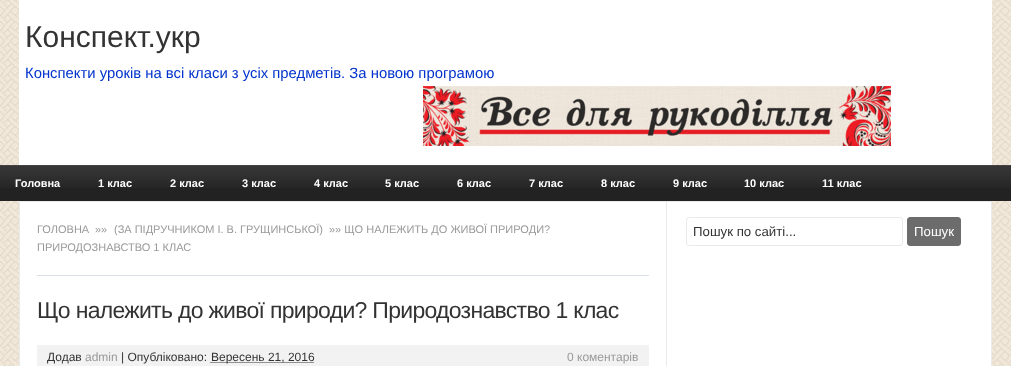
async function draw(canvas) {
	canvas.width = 1011;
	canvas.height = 366;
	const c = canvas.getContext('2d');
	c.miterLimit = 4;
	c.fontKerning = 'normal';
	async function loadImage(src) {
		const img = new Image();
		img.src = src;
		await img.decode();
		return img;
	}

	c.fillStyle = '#fff';
	c.fillRect(0, 0, 1011, 366);
	c.drawImage(await loadImage('img1.png'), 0, 0, 1011, 366);
	c.fillRect(19, 0, 973, 165);
	c.font = '30px Liberation Sans';
	c.fillStyle = '#333';
	c.fillText('Конспект.укр', 25, 47);
	c.font = '14.85px Liberation Sans';
	c.fillStyle = '#03c';
	c.fillText('Конспекти уроків на всі класи з усіх предметів. За новою програмою', 25, 78);
	c.drawImage(await loadImage('img2.png'), 423, 86, 468, 60);
	c.fillStyle = '#222';
	c.fillRect(0, 165, 1011, 36);
	c.drawImage(await loadImage('img3.png'), 0, 165, 1011, 23);
	c.font = 'bold 11px Liberation Sans';
	c.fillStyle = '#fff';
	for (const [text, x, y] of [
		['Головна', 15, 187],
		['1 клас', 98, 187],
		['2 клас', 170, 187],
		['3 клас', 242, 187],
		['4 клас', 314, 187],
		['5 клас', 385, 187],
		['6 клас', 457, 187],
		['7 клас', 529, 187],
		['8 клас', 601, 187],
		['9 клас', 673, 187],
		['10 клас', 744, 187],
		['11 клас', 822, 187],
	]) {
		c.fillText(text, x, y);
	}
	c.beginPath();
	c.rect(19.5, 201.5, 972, 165);
	c.fill();
	c.strokeStyle = '#eaeaea';
	c.stroke();
	c.fillStyle = '#eaeaea';
	c.fillRect(666, 202, 1, 164);
	c.fillStyle = '#dadfea';
	c.fillRect(37, 275, 612, 1);
	c.font = '11px Liberation Sans';
	c.fillStyle = '#999';
	for (const [text, x, y] of [
		['ГОЛОВНА', 37, 233],
		['»»', 95, 233],
		['(ЗА ПІДРУЧНИКОМ І. В. ГРУЩИНСЬКОЇ)', 114, 233],
		['»» ЩО НАЛЕЖИТЬ ДО ЖИВОЇ ПРИРОДИ?', 329, 233],
		['ПРИРОДОЗНАВСТВО 1 КЛАС', 37, 251],
	]) {
		c.fillText(text, x, y);
	}
	c.letterSpacing = '-0.7px';
	c.font = '23px Liberation Sans';
	c.fillStyle = '#333';
	c.fillText('Що належить до живої природи? Природознавство 1 клас', 37, 318);
	c.fillStyle = '#f2f2f2';
	c.fillRect(37, 345, 612, 21);
	c.letterSpacing = '0px';
	c.font = '12px Liberation Sans';
	c.fillStyle = '#333';
	c.fillText('Додав', 47, 361);
	c.fillStyle = '#999';
	c.fillText('admin', 85, 361);
	c.fillStyle = '#333';
	c.fillText('| Опубліковано:', 121, 361);
	c.beginPath();
	c.moveTo(210.5, 362.5);
	c.lineTo(314.5, 362.5);
	c.strokeStyle = '#333';
	c.setLineDash([1, 1]);
	c.stroke();
	c.fillText('Вересень 21, 2016', 211, 361);
	c.fillStyle = '#999';
	c.fillText('0 коментарів', 567, 361);
	c.beginPath();
	c.roundRect(686.5, 217.5, 216, 28, 2.5);
	c.strokeStyle = '#eaeaea';
	c.setLineDash([]);
	c.stroke();
	c.font = '13.25px Liberation Sans';
	c.fillStyle = '#333';
	c.fillText('Пошук по сайті...', 693, 236);
	c.fillStyle = '#6c6c6c';
	c.beginPath();
	c.roundRect(907.5, 217.5, 53, 28, 2.5);
	c.fill();
	c.strokeStyle = '#6c6c6c';
	c.stroke();
	c.fillStyle = '#fff';
	c.fillText('Пошук', 914, 236);
}

draw(document.querySelector('canvas'));
